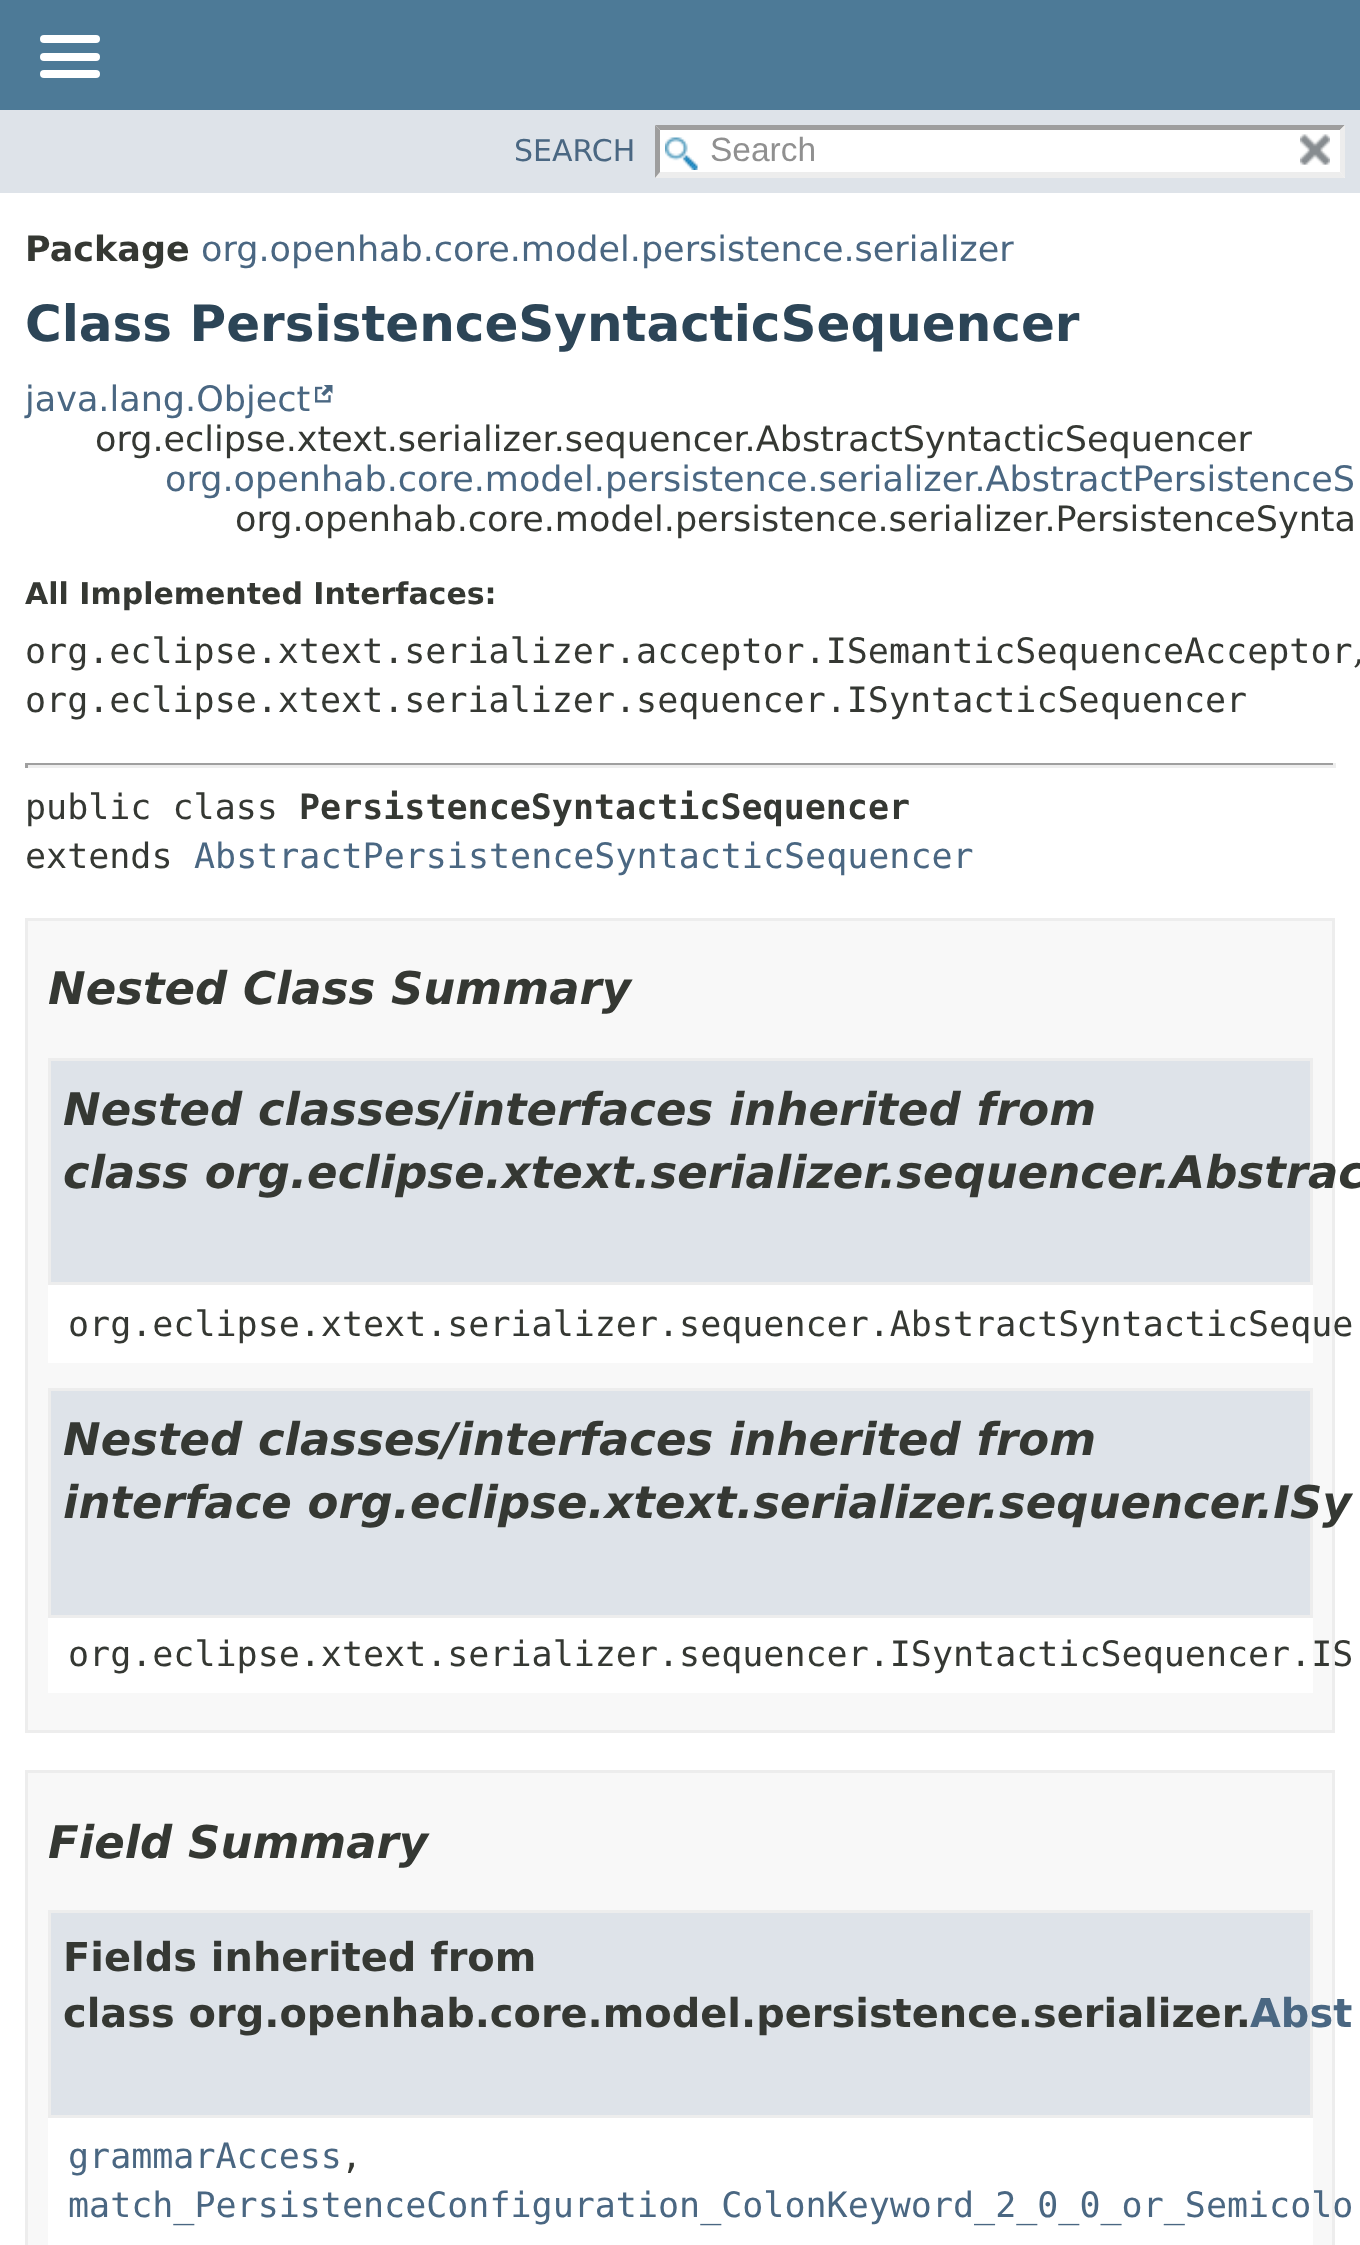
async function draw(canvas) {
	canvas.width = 1360;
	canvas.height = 2245;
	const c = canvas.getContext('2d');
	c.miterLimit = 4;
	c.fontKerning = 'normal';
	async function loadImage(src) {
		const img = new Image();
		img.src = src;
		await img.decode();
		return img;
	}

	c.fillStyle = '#fff';
	c.fillRect(0, 0, 1360, 2245);
	c.fillStyle = '#4d7a97';
	c.fillRect(0, 0, 1360, 110);
	c.fillStyle = '#fff';
	c.beginPath();
	c.roundRect(40, 35, 60, 8, 4);
	c.fill();
	c.beginPath();
	c.roundRect(40, 53, 60, 8, 4);
	c.fill();
	c.beginPath();
	c.roundRect(40, 70, 60, 8, 4);
	c.fill();
	c.fillStyle = '#dee3e9';
	c.fillRect(0, 110, 1360, 83);
	c.font = '30px DejaVu Sans';
	c.fillStyle = '#4a6782';
	c.fillText('SEARCH', 514, 161);
	c.fillStyle = '#fff';
	c.fillRect(655, 125, 690, 53);
	c.drawImage(await loadImage('img1.png'), 665, 137, 33, 33);
	c.fillStyle = '#9e9e9e';
	c.beginPath();
	c.moveTo(655, 125);
	c.lineTo(1345, 125);
	c.lineTo(1340, 130);
	c.lineTo(660, 130);
	c.closePath();
	c.fill();
	c.fillStyle = '#ededed';
	c.beginPath();
	c.moveTo(1345, 125);
	c.lineTo(1345, 178);
	c.lineTo(1340, 172);
	c.lineTo(1340, 130);
	c.closePath();
	c.fill();
	c.beginPath();
	c.moveTo(1345, 178);
	c.lineTo(655, 178);
	c.lineTo(660, 172);
	c.lineTo(1340, 172);
	c.closePath();
	c.fill();
	c.fillStyle = '#9e9e9e';
	c.beginPath();
	c.moveTo(655, 178);
	c.lineTo(655, 125);
	c.lineTo(660, 130);
	c.lineTo(660, 172);
	c.closePath();
	c.fill();
	c.font = '33.5px Liberation Sans';
	c.fillStyle = '#909090';
	c.fillText('Search', 710, 161);
	c.drawImage(await loadImage('img2.png'), 1300, 134, 30, 31);
	c.font = 'bold 35px DejaVu Sans';
	c.fillStyle = '#353833';
	c.fillText('Package', 25, 261);
	c.font = '35px DejaVu Sans';
	c.fillStyle = '#4a6782';
	c.fillText('org.openhab.core.model.persistence.serializer', 201, 261);
	c.font = 'bold 50px DejaVu Sans';
	c.fillStyle = '#2c4557';
	c.fillText('Class PersistenceSyntacticSequencer', 25, 341);
	c.font = '35px DejaVu Sans';
	c.fillStyle = '#4a6782';
	c.fillText('java.lang.Object', 25, 411);
	c.drawImage(await loadImage('img3.png'), 315, 385, 18, 18);
	c.fillStyle = '#353833';
	c.fillText('org.eclipse.xtext.serializer.sequencer.AbstractSyntacticSequencer', 95, 451);
	c.fillStyle = '#4a6782';
	c.fillText('org.openhab.core.model.persistence.serializer.AbstractPersistenceS', 165, 491);
	c.fillStyle = '#353833';
	c.fillText('org.openhab.core.model.persistence.serializer.PersistenceSynta', 235, 531);
	c.font = 'bold 30px DejaVu Sans';
	c.fillText('All Implemented Interfaces:', 25, 604);
	c.font = '35px DejaVu Sans Mono';
	c.fillText('org.eclipse.xtext.serializer.acceptor.ISemanticSequenceAcceptor', 25, 663);
	c.font = '35px DejaVu Serif';
	c.fillText(',', 1353, 663);
	c.font = '35px DejaVu Sans Mono';
	c.fillText('org.eclipse.xtext.serializer.sequencer.ISyntacticSequencer', 25, 712);
	for (const [x, y, w, h, color] of [
		[25, 763, 1310, 2, '#9f9f9f'],
		[1333, 763, 3, 5, '#eee'],
		[25, 765, 1310, 3, '#eee'],
		[25, 763, 3, 5, '#9f9f9f'],
	]) {
		c.fillStyle = color;
		c.fillRect(x, y, w, h);
	}
	c.fillStyle = '#353833';
	c.fillText('public class', 25, 819);
	c.font = 'bold 35px DejaVu Sans Mono';
	c.fillText('PersistenceSyntacticSequencer', 299, 819);
	c.font = '35px DejaVu Sans Mono';
	c.fillText('extends', 25, 868);
	c.fillStyle = '#4a6782';
	c.fillText('AbstractPersistenceSyntacticSequencer', 194, 868);
	c.fillStyle = '#f8f8f8';
	c.beginPath();
	c.rect(26.5, 919.5, 1307, 812);
	c.fill();
	c.strokeStyle = '#ededed';
	c.lineWidth = 3;
	c.stroke();
	c.font = 'italic bold 45px DejaVu Sans';
	c.fillStyle = '#353833';
	c.fillText('Nested Class Summary', 48, 1004);
	c.fillStyle = '#fff';
	c.fillRect(48, 1285, 1265, 78);
	c.fillStyle = '#dee3e9';
	c.beginPath();
	c.rect(49.5, 1059.5, 1262, 224);
	c.fill();
	c.stroke();
	c.fillStyle = '#353833';
	c.fillText('Nested classes/interfaces inherited from', 63, 1125);
	c.fillText('class org.eclipse.xtext.serializer.sequencer.Abstrac', 63, 1188);
	c.font = '35px DejaVu Sans Mono';
	c.fillText('org.eclipse.xtext.serializer.sequencer.AbstractSyntacticSeque', 68, 1336);
	c.fillStyle = '#fff';
	c.fillRect(48, 1618, 1265, 75);
	c.fillStyle = '#dee3e9';
	c.beginPath();
	c.rect(49.5, 1389.5, 1262, 227);
	c.fill();
	c.stroke();
	c.font = 'italic bold 45px DejaVu Sans';
	c.fillStyle = '#353833';
	c.fillText('Nested classes/interfaces inherited from', 63, 1455);
	c.fillText('interface org.eclipse.xtext.serializer.sequencer.ISy', 63, 1518);
	c.font = '35px DejaVu Sans Mono';
	c.fillText('org.eclipse.xtext.serializer.sequencer.ISyntacticSequencer.IS', 68, 1666);
	c.fillStyle = '#f8f8f8';
	c.beginPath();
	c.rect(26.5, 1771.5, 1307, 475);
	c.fill();
	c.stroke();
	c.font = 'italic bold 45px DejaVu Sans';
	c.fillStyle = '#353833';
	c.fillText('Field Summary', 48, 1858);
	c.fillStyle = '#fff';
	c.fillRect(48, 2118, 1265, 127);
	c.fillStyle = '#dee3e9';
	c.beginPath();
	c.rect(49.5, 1911.5, 1262, 205);
	c.fill();
	c.stroke();
	c.font = 'bold 39.9px DejaVu Sans';
	c.fillStyle = '#353833';
	c.fillText('Fields inherited from', 63, 1971);
	c.fillText('class org.openhab.core.model.persistence.serializer.', 63, 2027);
	c.fillStyle = '#4a6782';
	c.fillText('Abst', 1250, 2027);
	c.font = '35px DejaVu Sans Mono';
	c.fillText('grammarAccess', 68, 2168);
	c.fillStyle = '#353833';
	c.fillText(',', 341, 2168);
	c.fillStyle = '#4a6782';
	c.fillText('match_PersistenceConfiguration_ColonKeyword_2_0_0_or_Semicolo', 68, 2217);
}

draw(document.querySelector('canvas'));
